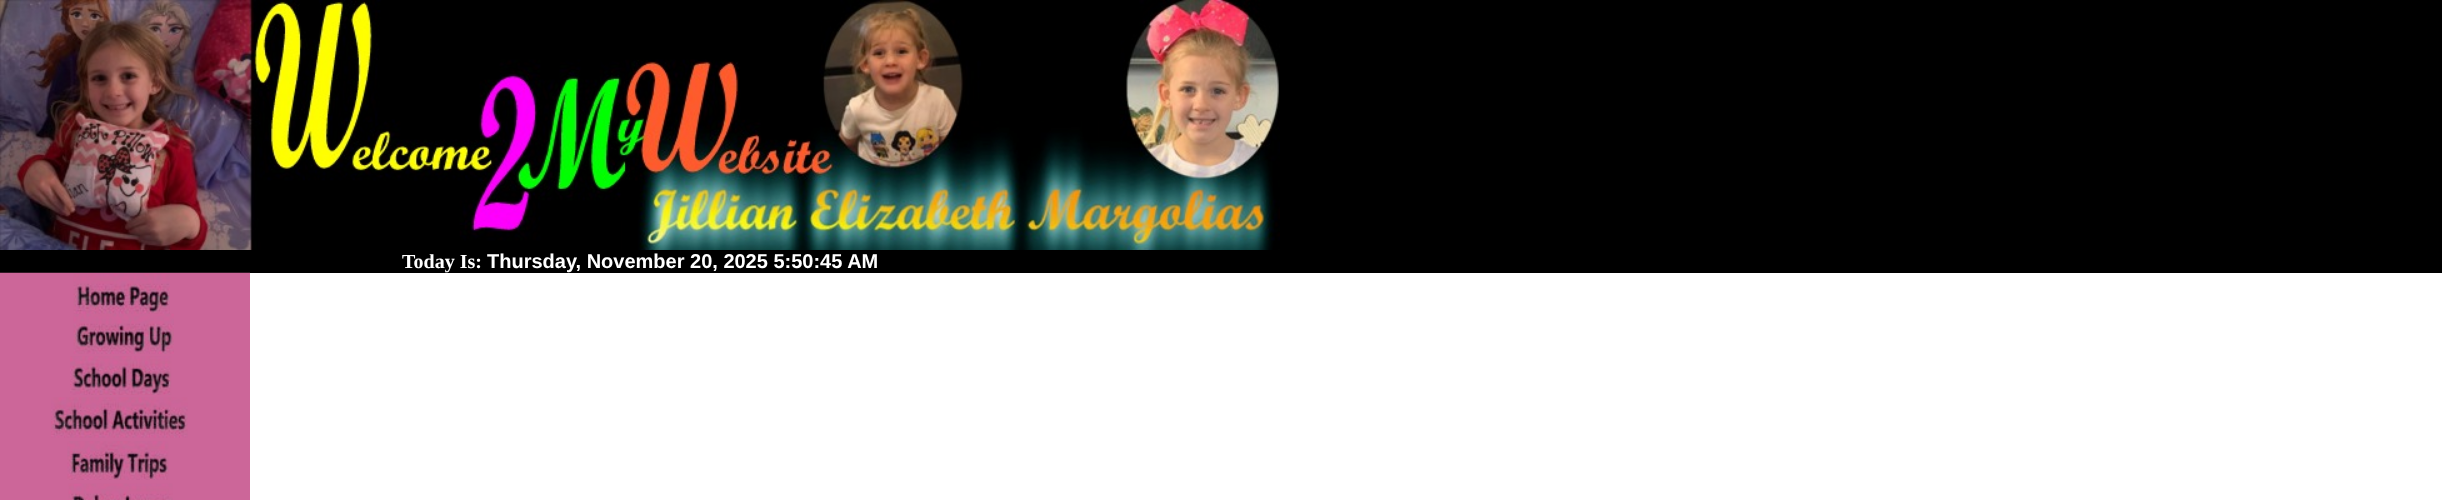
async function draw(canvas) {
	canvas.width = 2442;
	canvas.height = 500;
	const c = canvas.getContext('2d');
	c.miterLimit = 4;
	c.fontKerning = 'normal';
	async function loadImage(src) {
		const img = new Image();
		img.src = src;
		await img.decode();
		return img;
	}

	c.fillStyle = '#fff';
	c.fillRect(0, 0, 2442, 500);
	c.fillStyle = '#000';
	c.fillRect(0, 0, 2442, 273);
	c.drawImage(await loadImage('img1.png'), 0, 0, 1280, 250);
	c.font = 'bold 20px Liberation Serif';
	c.fillStyle = '#fff';
	c.fillText('Today Is:', 402, 268);
	c.font = 'bold 20px Liberation Sans';
	c.fillText('Thursday, November 20, 2025 5:50:45 AM', 487, 268);
	c.drawImage(await loadImage('img2.png'), 0, 272, 250, 228);
}

draw(document.querySelector('canvas'));
